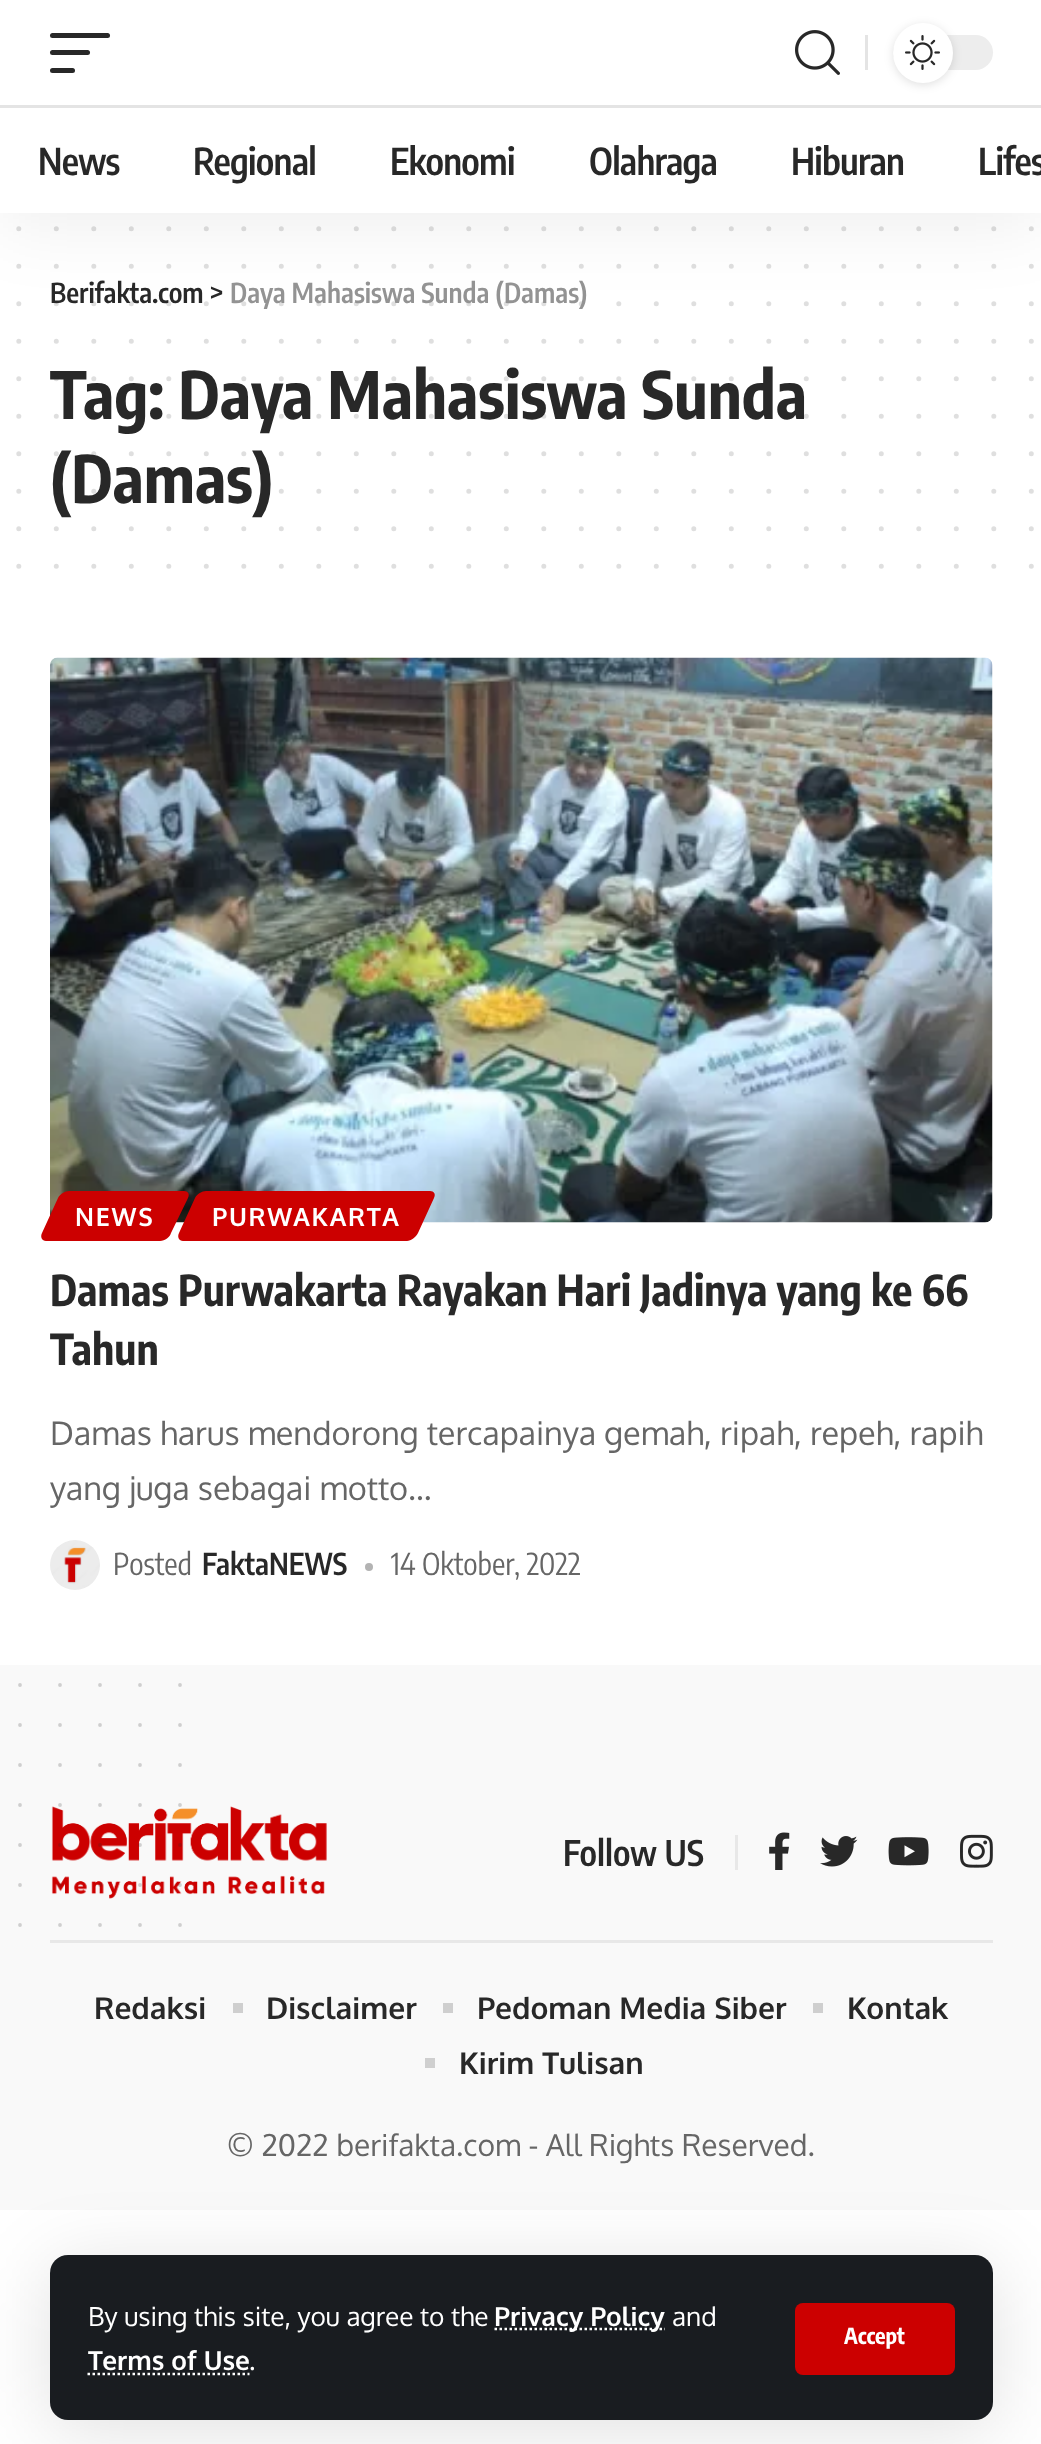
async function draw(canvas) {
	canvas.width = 1041;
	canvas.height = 2444;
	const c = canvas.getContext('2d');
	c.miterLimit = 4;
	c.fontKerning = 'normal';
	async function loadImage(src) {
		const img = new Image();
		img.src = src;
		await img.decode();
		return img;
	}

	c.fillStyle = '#fff';
	c.fillRect(0, 0, 1041, 2444);
	c.beginPath();
	c.moveTo(18.8, 228.8);
	c.lineTo(1031.8, 228.8);
	c.strokeStyle = '#dfdfdf';
	c.lineWidth = 5;
	c.lineCap = 'round';
	c.setLineDash([0, 37.5]);
	c.stroke();
	c.beginPath();
	c.moveTo(18.8, 266.2);
	c.lineTo(1031.8, 266.2);
	c.stroke();
	c.font = '600 27.5px Encode Sans Condensed';
	c.fillStyle = '#282828';
	c.fillText('Berifakta.com >', 50, 303);
	c.beginPath();
	c.moveTo(18.8, 303.8);
	c.lineTo(1031.8, 303.8);
	c.strokeStyle = '#28282826';
	c.stroke();
	c.fillStyle = '#00000012';
	c.filter = 'blur(37.5px)';
	c.beginPath();
	c.rect(0, 10, 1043, 213);
	c.fill();
	c.filter = 'none';
	c.fillStyle = '#fff';
	c.fillRect(0, 0, 1041, 213);
	c.fillStyle = '#282828';
	c.beginPath();
	c.roundRect(50, 33, 60, 5, 2.5);
	c.fill();
	c.beginPath();
	c.roundRect(50, 50, 40, 5, 2.5);
	c.fill();
	c.beginPath();
	c.roundRect(50, 68, 25, 5, 2.5);
	c.fill();
	c.drawImage(await loadImage('img1.png'), 795, 30, 45, 45);
	c.fillStyle = '#e4e4e4';
	c.fillRect(865, 35, 3, 35);
	c.fillStyle = '#ededed';
	c.beginPath();
	c.roundRect(893, 35, 100, 35, 17.5);
	c.fill();
	c.fillStyle = '#0000001f';
	c.filter = 'blur(5px)';
	c.beginPath();
	c.roundRect(893, 25, 60, 60, 30);
	c.fill();
	c.filter = 'none';
	c.fillStyle = '#fff';
	c.beginPath();
	c.arc(923, 53, 30, 0, 2 * Math.PI);
	c.fill();
	c.drawImage(await loadImage('img2.png'), 905, 35, 35, 35);
	c.fillStyle = '#e4e4e4';
	c.fillRect(0, 105, 1041, 3);
	c.letterSpacing = '-0.75px';
	c.font = '600 37px Encode Sans Condensed';
	c.fillStyle = '#282828';
	for (const [text, x, y] of [
		['News', 38, 175],
		['Regional', 193, 175],
		['Ekonomi', 390, 175],
		['Olahraga', 589, 175],
		['Hiburan', 791, 175],
		['Lifes', 978, 175],
	]) {
		c.fillText(text, x, y);
	}
	c.fillStyle = '#f9f9f9';
	c.fillRect(0, 1665, 1041, 545);
	c.fillStyle = '#0000001f';
	c.filter = 'blur(37.5px)';
	c.beginPath();
	c.roundRect(50, 2265, 943, 165, 18);
	c.fill();
	c.filter = 'none';
	c.fillStyle = '#191c20';
	c.beginPath();
	c.roundRect(50, 2255, 943, 165, 18);
	c.fill();
	c.letterSpacing = '0px';
	c.font = '26.25px Oxygen';
	c.fillStyle = '#fff';
	c.fillText('By using this site, you agree to the', 88, 2326);
	c.beginPath();
	c.moveTo(494.5, 2329);
	c.lineTo(665, 2329);
	c.strokeStyle = '#fff';
	c.lineWidth = 2.5;
	c.lineCap = 'butt';
	c.setLineDash([2.5, 2.5]);
	c.stroke();
	c.font = 'bold 26.25px Oxygen';
	c.fillText('Privacy Policy', 494, 2326);
	c.font = '26.25px Oxygen';
	c.fillText('and', 672, 2326);
	c.font = 'bold 26.25px Oxygen';
	c.fillText('Terms of Use', 88, 2370);
	c.beginPath();
	c.moveTo(87.5, 2374);
	c.lineTo(249.5, 2374);
	c.stroke();
	c.font = '26.25px Oxygen';
	c.fillText('.', 249, 2370);
	c.fillStyle = '#c00';
	c.beginPath();
	c.roundRect(795, 2303, 160, 72, 8);
	c.fill();
	c.font = 'bold 22px Encode Sans Condensed';
	c.fillStyle = '#fff';
	c.fillText('Accept', 844, 2344);
	c.beginPath();
	c.moveTo(18.8, 341.2);
	c.lineTo(1031.8, 341.2);
	c.strokeStyle = '#dfdfdf';
	c.lineWidth = 5;
	c.lineCap = 'round';
	c.setLineDash([0, 37.5]);
	c.stroke();
	c.font = 'bold 65px Encode Sans Condensed';
	c.fillStyle = '#282828';
	c.fillText('Tag: Daya Mahasiswa Sunda', 50, 419);
	c.beginPath();
	c.moveTo(18.8, 378.8);
	c.lineTo(1031.8, 378.8);
	c.strokeStyle = '#28282826';
	c.stroke();
	c.beginPath();
	c.moveTo(18.8, 416.2);
	c.lineTo(1031.8, 416.2);
	c.stroke();
	c.fillText('(Damas)', 50, 503);
	c.beginPath();
	c.moveTo(18.8, 453.8);
	c.lineTo(1031.8, 453.8);
	c.stroke();
	c.beginPath();
	c.moveTo(18.8, 491.2);
	c.lineTo(1031.8, 491.2);
	c.stroke();
	c.beginPath();
	c.moveTo(18.8, 528.8);
	c.lineTo(1031.8, 528.8);
	c.strokeStyle = '#dfdfdf';
	c.stroke();
	c.beginPath();
	c.moveTo(18.8, 566.2);
	c.lineTo(1031.8, 566.2);
	c.stroke();
	c.font = '600 27.5px Encode Sans Condensed';
	c.fillStyle = '#939393';
	c.fillText('Daya Mahasiswa Sunda (Damas)', 230, 303);
	c.drawImage(await loadImage('img3.png'), 50, 657, 943, 566);
	c.fillStyle = '#c00';
	c.beginPath();
	c.moveTo(69, 1191);
	c.lineTo(184, 1191);
	c.bezierCurveTo(188, 1191, 190, 1194, 188, 1198);
	c.lineTo(171, 1233);
	c.bezierCurveTo(170, 1237, 165, 1241, 160, 1241);
	c.lineTo(46, 1241);
	c.bezierCurveTo(42, 1241, 40, 1237, 42, 1233);
	c.lineTo(58, 1198);
	c.bezierCurveTo(60, 1194, 65, 1191, 69, 1191);
	c.closePath();
	c.fill();
	c.letterSpacing = '1.75px';
	c.font = 'bold 25px Oxygen';
	c.fillStyle = '#fff';
	c.fillText('NEWS', 75, 1226);
	c.fillStyle = '#c00';
	c.beginPath();
	c.moveTo(206, 1191);
	c.lineTo(430, 1191);
	c.bezierCurveTo(434, 1191, 436, 1194, 434, 1198);
	c.lineTo(418, 1233);
	c.bezierCurveTo(416, 1237, 411, 1241, 407, 1241);
	c.lineTo(183, 1241);
	c.bezierCurveTo(179, 1241, 177, 1237, 179, 1233);
	c.lineTo(195, 1198);
	c.bezierCurveTo(197, 1194, 202, 1191, 206, 1191);
	c.closePath();
	c.fill();
	c.fillStyle = '#fff';
	c.fillText('PURWAKARTA', 212, 1226);
	c.letterSpacing = '0px';
	c.font = 'bold 42.5px Encode Sans Condensed';
	c.fillStyle = '#282828';
	c.fillText('Damas Purwakarta Rayakan Hari Jadinya yang ke 66', 50, 1306);
	c.fillText('Tahun', 50, 1365);
	c.font = '32.5px Oxygen';
	c.fillStyle = '#666';
	c.fillText('Damas harus mendorong tercapainya gemah, ripah, repeh, rapih', 50, 1445);
	c.fillText('yang juga sebagai motto…', 50, 1500);
	c.drawImage(await loadImage('img4.png'), 50, 1540, 50, 50);
	c.font = '30px Encode Sans Condensed';
	c.fillText('Posted', 113, 1575);
	c.font = '600 30px Encode Sans Condensed';
	c.fillStyle = '#282828';
	c.fillText('FaktaNEWS', 202, 1575);
	c.fillStyle = '#b3b3b3';
	c.beginPath();
	c.arc(369, 1567, 4, 0, 2 * Math.PI);
	c.fill();
	c.font = '30px Encode Sans Condensed';
	c.fillStyle = '#666';
	c.fillText('14 Oktober, 2022', 391, 1575);
	c.beginPath();
	c.moveTo(20, 1685);
	c.lineTo(20, 1925.5);
	c.strokeStyle = '#cfcfcf';
	c.lineWidth = 3.8;
	c.setLineDash([0, 40]);
	c.stroke();
	c.drawImage(await loadImage('img5.png'), 51, 1806, 276, 93);
	c.beginPath();
	c.moveTo(60, 1685);
	c.lineTo(60, 1925.5);
	c.strokeStyle = '#28282833';
	c.stroke();
	c.beginPath();
	c.moveTo(100, 1685);
	c.lineTo(100, 1925.5);
	c.stroke();
	c.beginPath();
	c.moveTo(140, 1685);
	c.lineTo(140, 1925.5);
	c.stroke();
	c.beginPath();
	c.moveTo(180, 1685);
	c.lineTo(180, 1925.5);
	c.stroke();
	c.fillStyle = '#e8e8e8';
	c.fillRect(735, 1835, 3, 35);
	c.font = '600 35px Encode Sans Condensed';
	c.fillStyle = '#282828';
	c.fillText('Follow US', 563, 1866);
	c.drawImage(await loadImage('img6.png'), 769, 1832, 21, 38);
	c.drawImage(await loadImage('img7.png'), 820, 1836, 38, 31);
	c.drawImage(await loadImage('img8.png'), 888, 1837, 41, 29);
	c.drawImage(await loadImage('img9.png'), 960, 1834, 33, 34);
	c.fillStyle = '#e8e8e8';
	c.fillRect(50, 1940, 943, 3);
	c.font = 'bold 30px Oxygen';
	c.fillStyle = '#282828';
	c.fillText('Redaksi', 94, 2019);
	c.fillStyle = '#cfcfcf';
	c.fillRect(233, 2003, 10, 10);
	c.fillStyle = '#282828';
	c.fillText('Disclaimer', 266, 2019);
	c.fillStyle = '#cfcfcf';
	c.fillRect(443, 2003, 10, 10);
	c.fillStyle = '#282828';
	c.fillText('Pedoman Media Siber', 477, 2019);
	c.fillStyle = '#cfcfcf';
	c.fillRect(813, 2003, 10, 10);
	c.fillStyle = '#282828';
	c.fillText('Kontak', 847, 2019);
	c.fillStyle = '#cfcfcf';
	c.fillRect(425, 2058, 10, 10);
	c.fillStyle = '#282828';
	c.fillText('Kirim Tulisan', 459, 2074);
	c.font = '30px Oxygen';
	c.fillStyle = '#666';
	c.fillText('© 2022 berifakta.com - All Rights Reserved.', 227, 2156);
}

draw(document.querySelector('canvas'));
